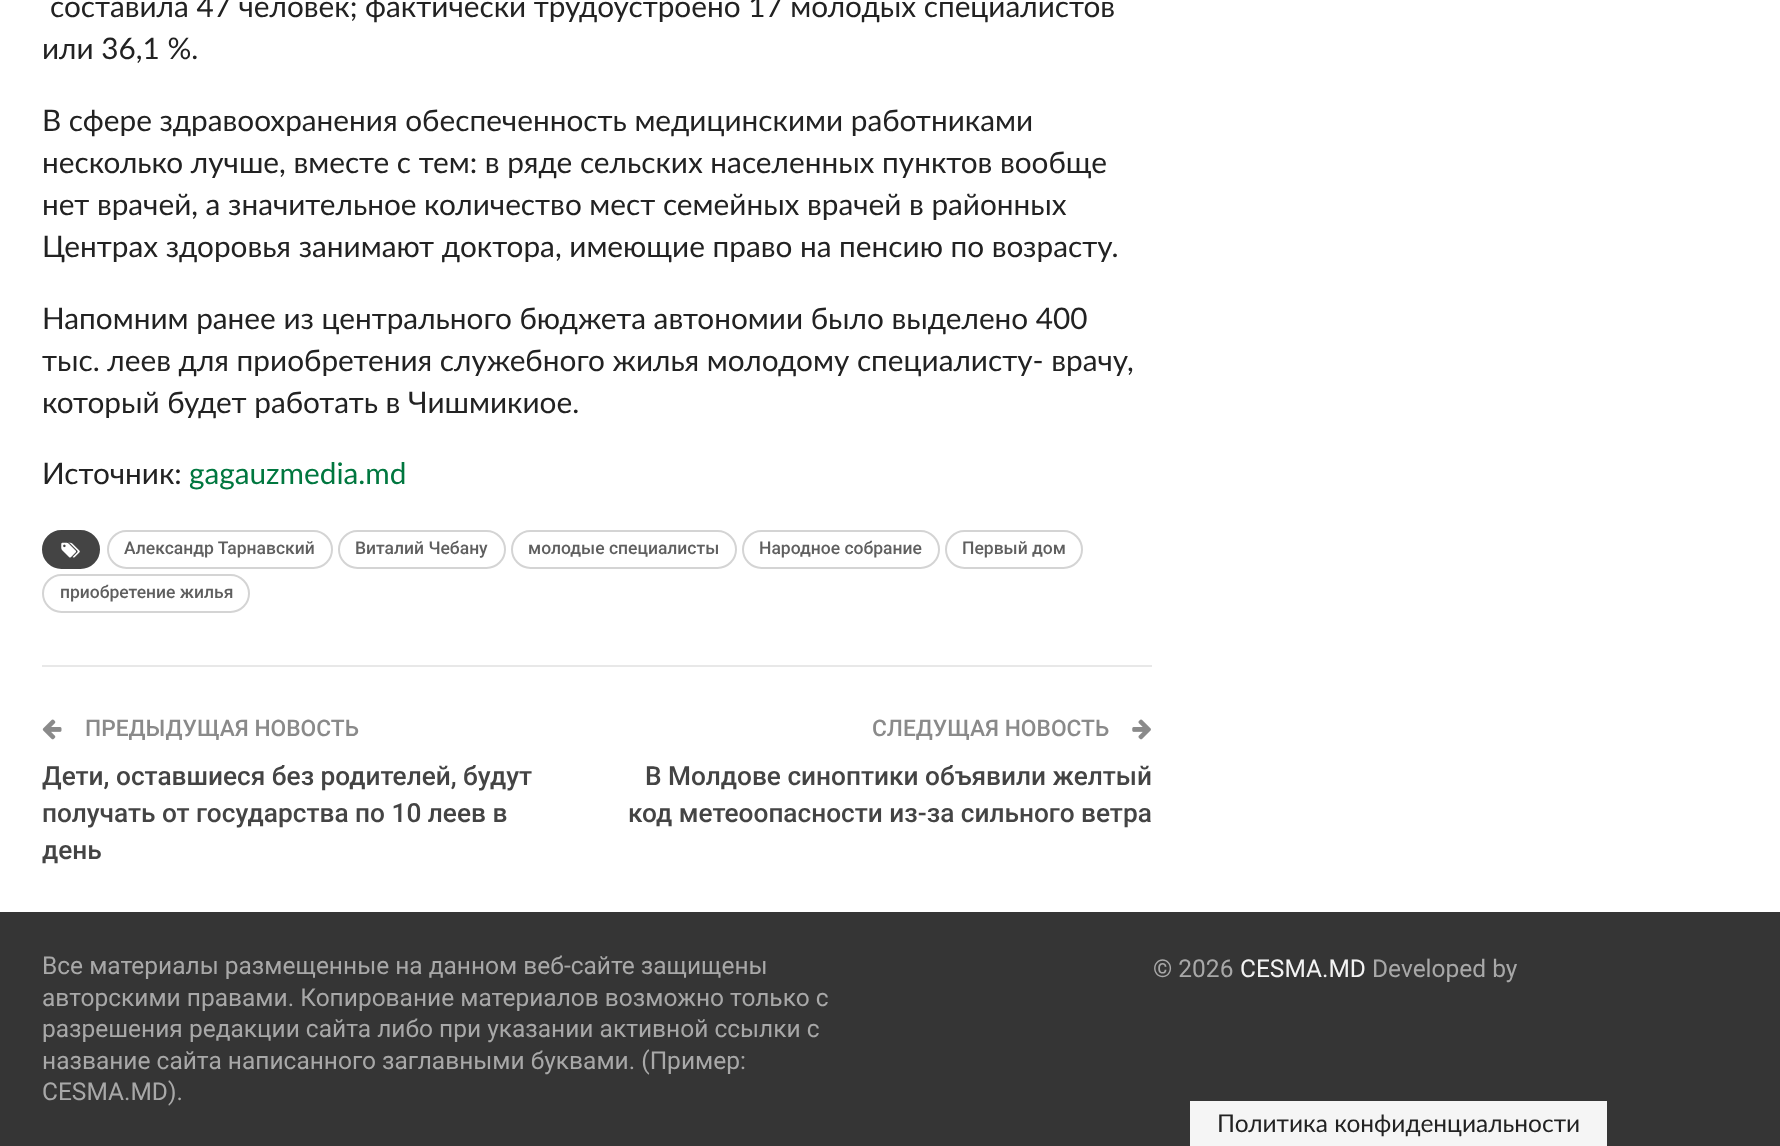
async function draw(canvas) {
	canvas.width = 1780;
	canvas.height = 1146;
	const c = canvas.getContext('2d');
	c.miterLimit = 4;
	c.fontKerning = 'normal';
	async function loadImage(src) {
		const img = new Image();
		img.src = src;
		await img.decode();
		return img;
	}

	c.fillStyle = '#fff';
	c.fillRect(0, 0, 1780, 1146);
	c.font = '29.75px Lato';
	c.fillStyle = '#222';
	for (const [text, x, y] of [
		['составила 47 человек; фактически трудоустроено 17 молодых специалистов', 50, 17],
		['или 36,1 %.', 42, 59],
		['В сфере здравоохранения обеспеченность медицинскими работниками', 42, 131],
		['несколько лучше, вместе с тем: в ряде сельских населенных пунктов вообще', 42, 173],
		['нет врачей, а значительное количество мест семейных врачей в районных', 42, 215],
		['Центрах здоровья занимают доктора, имеющие право на пенсию по возрасту.', 42, 257],
		['Напомним ранее из центрального бюджета автономии было выделено 400', 42, 329],
		['тыс. леев для приобретения служебного жилья молодому специалисту- врачу,', 42, 371],
		['который будет работать в Чишмикиое.', 42, 413],
		['Источник:', 42, 484],
	]) {
		c.fillText(text, x, y);
	}
	c.fillStyle = '#00773f';
	c.fillText('gagauzmedia.md', 189, 484);
	c.fillStyle = '#444';
	c.beginPath();
	c.roundRect(43, 531, 56, 37, 18.5);
	c.fill();
	c.strokeStyle = '#444';
	c.lineWidth = 2;
	c.stroke();
	c.drawImage(await loadImage('img1.png'), 61, 542, 19, 16);
	c.beginPath();
	c.roundRect(108, 531, 224, 37, 18.5);
	c.strokeStyle = '#d4d4d4';
	c.stroke();
	c.font = '500 17.5px Roboto';
	c.fillStyle = '#5f5f5f';
	c.fillText('Александр Тарнавский', 124, 554);
	c.beginPath();
	c.roundRect(339, 531, 166, 37, 18.5);
	c.stroke();
	c.fillText('Виталий Чебану', 355, 554);
	c.beginPath();
	c.roundRect(512, 531, 224, 37, 18.5);
	c.stroke();
	c.fillText('молодые специалисты', 528, 554);
	c.beginPath();
	c.roundRect(743, 531, 196, 37, 18.5);
	c.stroke();
	c.fillText('Народное собрание', 759, 554);
	c.beginPath();
	c.roundRect(946, 531, 136, 37, 18.5);
	c.stroke();
	c.fillText('Первый дом', 962, 554);
	c.beginPath();
	c.roundRect(43, 575, 206, 37, 18.5);
	c.stroke();
	c.fillText('приобретение жилья', 60, 598);
	c.fillStyle = '#e8e8e8';
	c.fillRect(42, 665, 1110, 2);
	c.drawImage(await loadImage('img2.png'), 42, 719, 20, 21);
	c.font = '500 22.75px Roboto';
	c.fillStyle = '#8a8a8a';
	c.fillText('ПРЕДЫДУЩАЯ НОВОСТЬ', 85, 736);
	c.font = '500 26.25px Roboto';
	c.fillStyle = '#444';
	for (const [text, x, y] of [
		['Дети, оставшиеся без родителей, будут', 42, 785],
		['получать от государства по 10 леев в', 42, 822],
		['день', 42, 859],
	]) {
		c.fillText(text, x, y);
	}
	c.font = '500 22.75px Roboto';
	c.fillStyle = '#8a8a8a';
	c.fillText('СЛЕДУЩАЯ НОВОСТЬ', 872, 736);
	c.drawImage(await loadImage('img3.png'), 1132, 719, 19, 21);
	c.font = '500 26.25px Roboto';
	c.fillStyle = '#444';
	c.fillText('В Молдове синоптики объявили желтый', 645, 785);
	c.fillText('код метеоопасности из-за сильного ветра', 628, 822);
	c.fillStyle = '#353535';
	c.fillRect(0, 912, 1780, 234);
	c.font = '24.5px Roboto';
	c.fillStyle = '#a8a8a8';
	for (const [text, x, y] of [
		['Все материалы размещенные на данном веб-сайте защищены', 42, 974],
		['авторскими правами. Копирование материалов возможно только с', 42, 1006],
		['разрешения редакции сайта либо при указании активной ссылки с', 42, 1037],
		['название сайта написанного заглавными буквами. (Пример:', 42, 1069],
		['CESMA.MD).', 42, 1100],
		['© 2026', 1153, 977],
	]) {
		c.fillText(text, x, y);
	}
	c.fillStyle = '#f3f3f3';
	c.fillText('CESMA.MD', 1240, 977);
	c.fillStyle = '#a8a8a8';
	c.fillText('Developed by', 1372, 977);
	c.fillStyle = '#f5f5f5';
	c.fillRect(1190, 1101, 417, 45);
	c.font = '24.5px Lato';
	c.fillStyle = '#222';
	c.fillText('Политика конфиденциальности', 1217, 1132);
}

draw(document.querySelector('canvas'));
